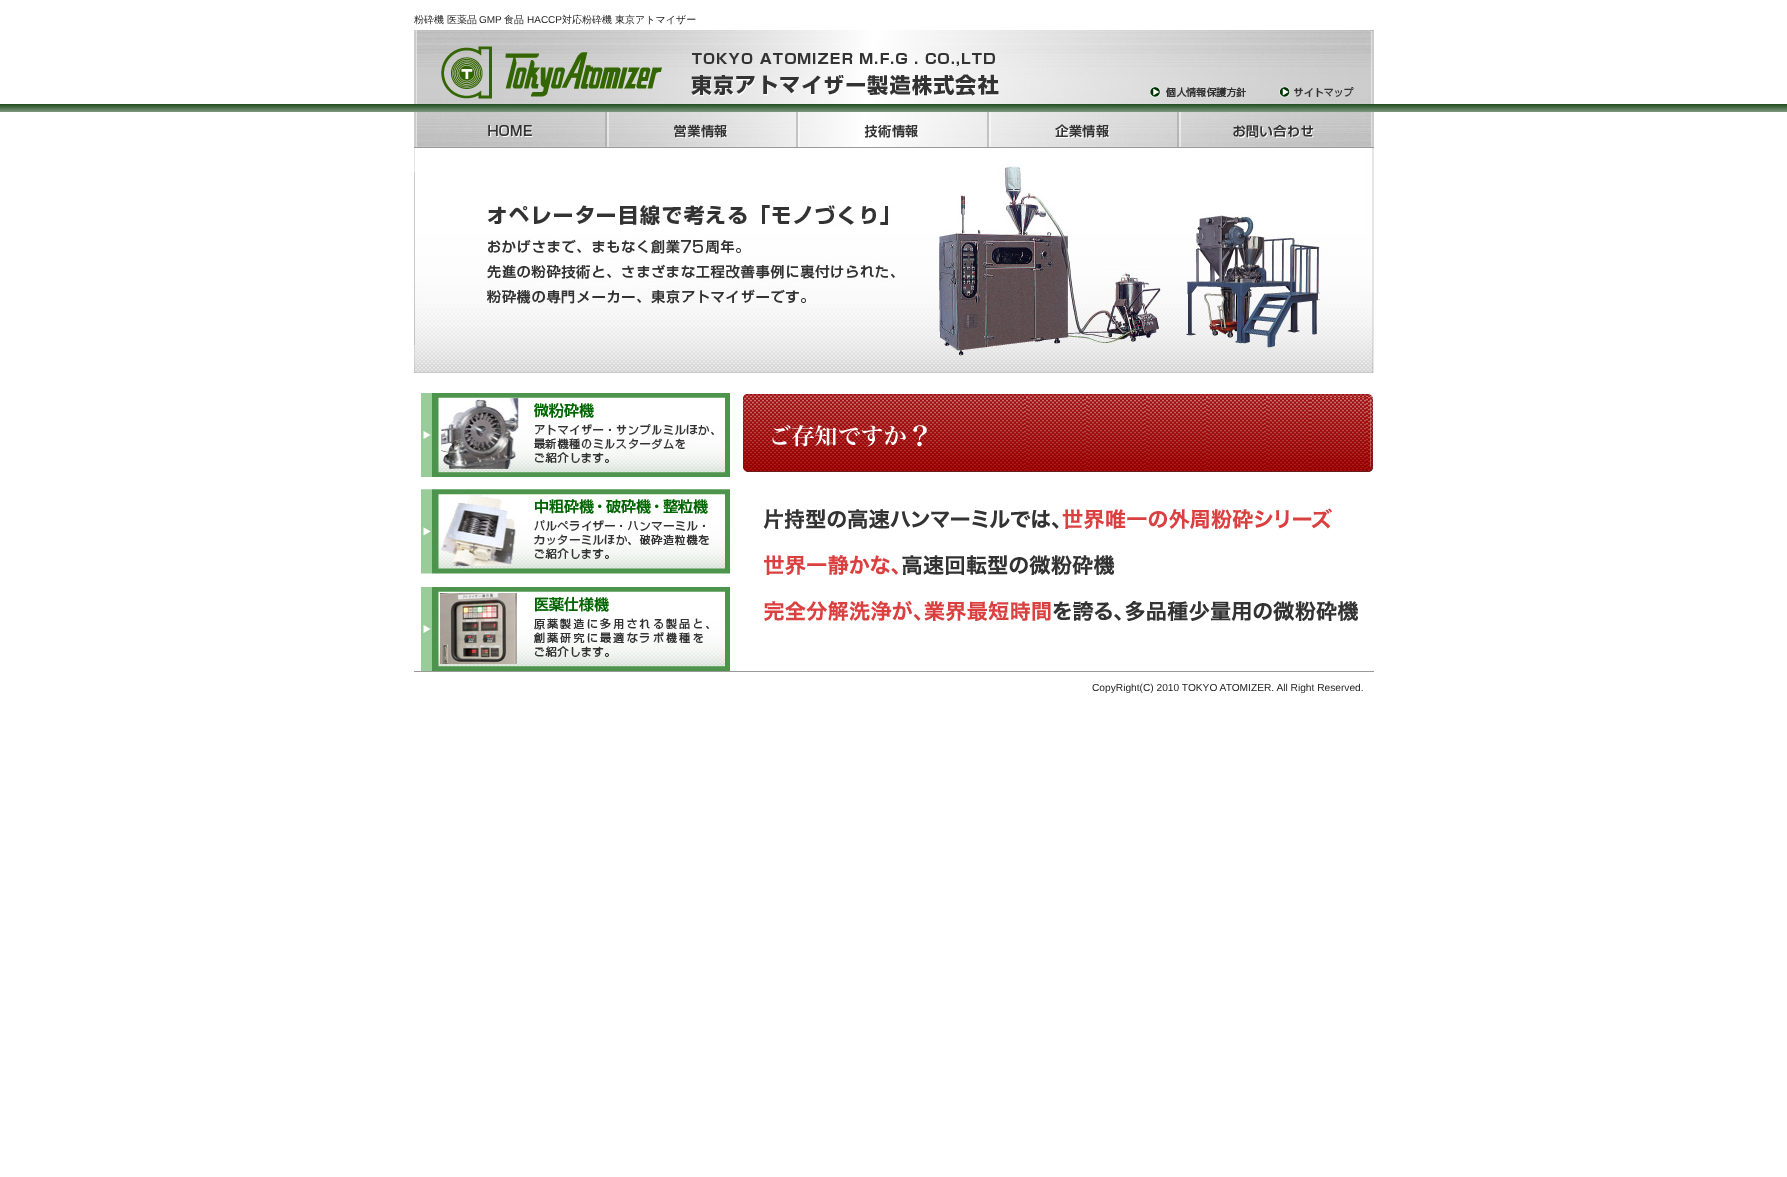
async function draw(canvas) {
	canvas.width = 1787;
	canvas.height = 1177;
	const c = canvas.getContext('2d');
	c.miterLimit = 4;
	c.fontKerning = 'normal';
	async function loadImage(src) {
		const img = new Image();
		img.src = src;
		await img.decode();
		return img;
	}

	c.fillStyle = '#fff';
	c.fillRect(0, 0, 1787, 1177);
	c.drawImage(await loadImage('img1.png'), 0, 104, 1787, 8);
	c.font = '500 10px WenQuanYi Zen Hei';
	c.fillStyle = '#1f1f1f';
	c.fillText('粉砕機 医薬品', 414, 23);
	c.font = '10px Liberation Sans';
	c.fillText('GMP', 479, 23);
	c.font = '500 10px WenQuanYi Zen Hei';
	c.fillText('食品', 504, 23);
	c.font = '10px Liberation Sans';
	c.fillText('HACCP', 527, 23);
	c.font = '500 10px WenQuanYi Zen Hei';
	c.fillText('対応粉砕機 東京アトマイザー', 562, 23);
	c.drawImage(await loadImage('img2.png'), 414, 30, 960, 118);
	c.drawImage(await loadImage('img3.png'), 1149, 86, 11, 10);
	c.drawImage(await loadImage('img4.png'), 1284, 86, 6, 12);
	c.fillStyle = '#999';
	c.fillRect(414, 147, 3, 1);
	c.drawImage(await loadImage('img5.png'), 607, 124, 95, 24);
	c.drawImage(await loadImage('img6.png'), 798, 124, 121, 24);
	c.drawImage(await loadImage('img7.png'), 989, 124, 94, 24);
	c.fillRect(1179, 147, 195, 1);
	c.drawImage(await loadImage('img8.png'), 414, 148, 960, 225);
	c.drawImage(await loadImage('img9.png'), 421, 392, 309, 85);
	c.drawImage(await loadImage('img10.png'), 421, 489, 309, 84);
	c.drawImage(await loadImage('img11.png'), 421, 573, 309, 98);
	c.drawImage(await loadImage('img12.png'), 743, 394, 630, 78);
	c.drawImage(await loadImage('img13.png'), 763, 508, 569, 21);
	c.drawImage(await loadImage('img14.png'), 764, 555, 351, 20);
	c.drawImage(await loadImage('img15.png'), 764, 601, 594, 20);
	c.fillRect(414, 671, 960, 1);
	c.font = '10.2px Liberation Sans';
	c.fillStyle = '#1f1f1f';
	c.fillText('CopyRight(C) 2010 TOKYO ATOMIZER. All Right Reserved.', 1092, 691);
}

draw(document.querySelector('canvas'));
